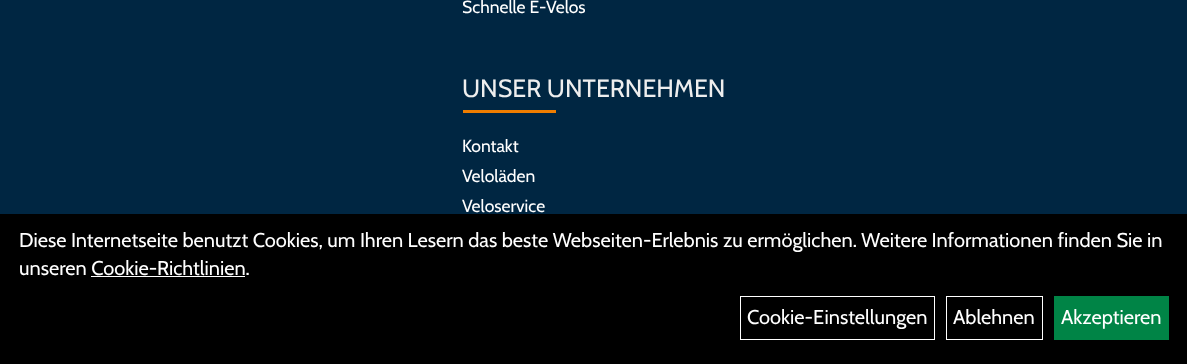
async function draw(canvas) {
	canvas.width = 1187;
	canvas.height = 364;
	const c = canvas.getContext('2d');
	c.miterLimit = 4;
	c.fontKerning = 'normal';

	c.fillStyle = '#002642';
	c.fillRect(0, 0, 1187, 364);
	c.font = '17.5px Cabin';
	c.fillStyle = '#fff';
	c.fillText('Schnelle E-Velos', 462, 13);
	c.font = '25px Cabin';
	c.fillStyle = '#eee';
	c.fillText('UNSER UNTERNEHMEN', 462, 97);
	c.fillStyle = '#ef7d00';
	c.fillRect(463, 110, 93, 3);
	c.font = '17.5px Cabin';
	c.fillStyle = '#fff';
	for (const [text, x, y] of [
		['Kontakt', 462, 152],
		['Veloläden', 462, 182],
		['Veloservice', 462, 212],
	]) {
		c.fillText(text, x, y);
	}
	c.fillStyle = '#000';
	c.fillRect(0, 214, 1187, 150);
	c.font = '20px Cabin';
	c.fillStyle = '#fff';
	c.fillText('Diese Internetseite benutzt Cookies, um Ihren Lesern das beste Webseiten-Erlebnis zu ermöglichen. Weitere Informationen finden Sie in', 19, 247);
	c.fillText('unseren Cookie-Richtlinien.', 19, 275);
	c.fillRect(91, 276, 154, 1);
	c.strokeStyle = '#fff';
	c.strokeRect(740.5, 296.5, 194, 43);
	c.fillText('Cookie-Einstellungen', 747, 324);
	c.strokeRect(946.5, 296.5, 96, 43);
	c.fillText('Ablehnen', 953, 324);
	c.fillStyle = '#008446';
	c.fillRect(1054, 296, 115, 44);
	c.fillStyle = '#fff';
	c.fillText('Akzeptieren', 1061, 324);
}

draw(document.querySelector('canvas'));
